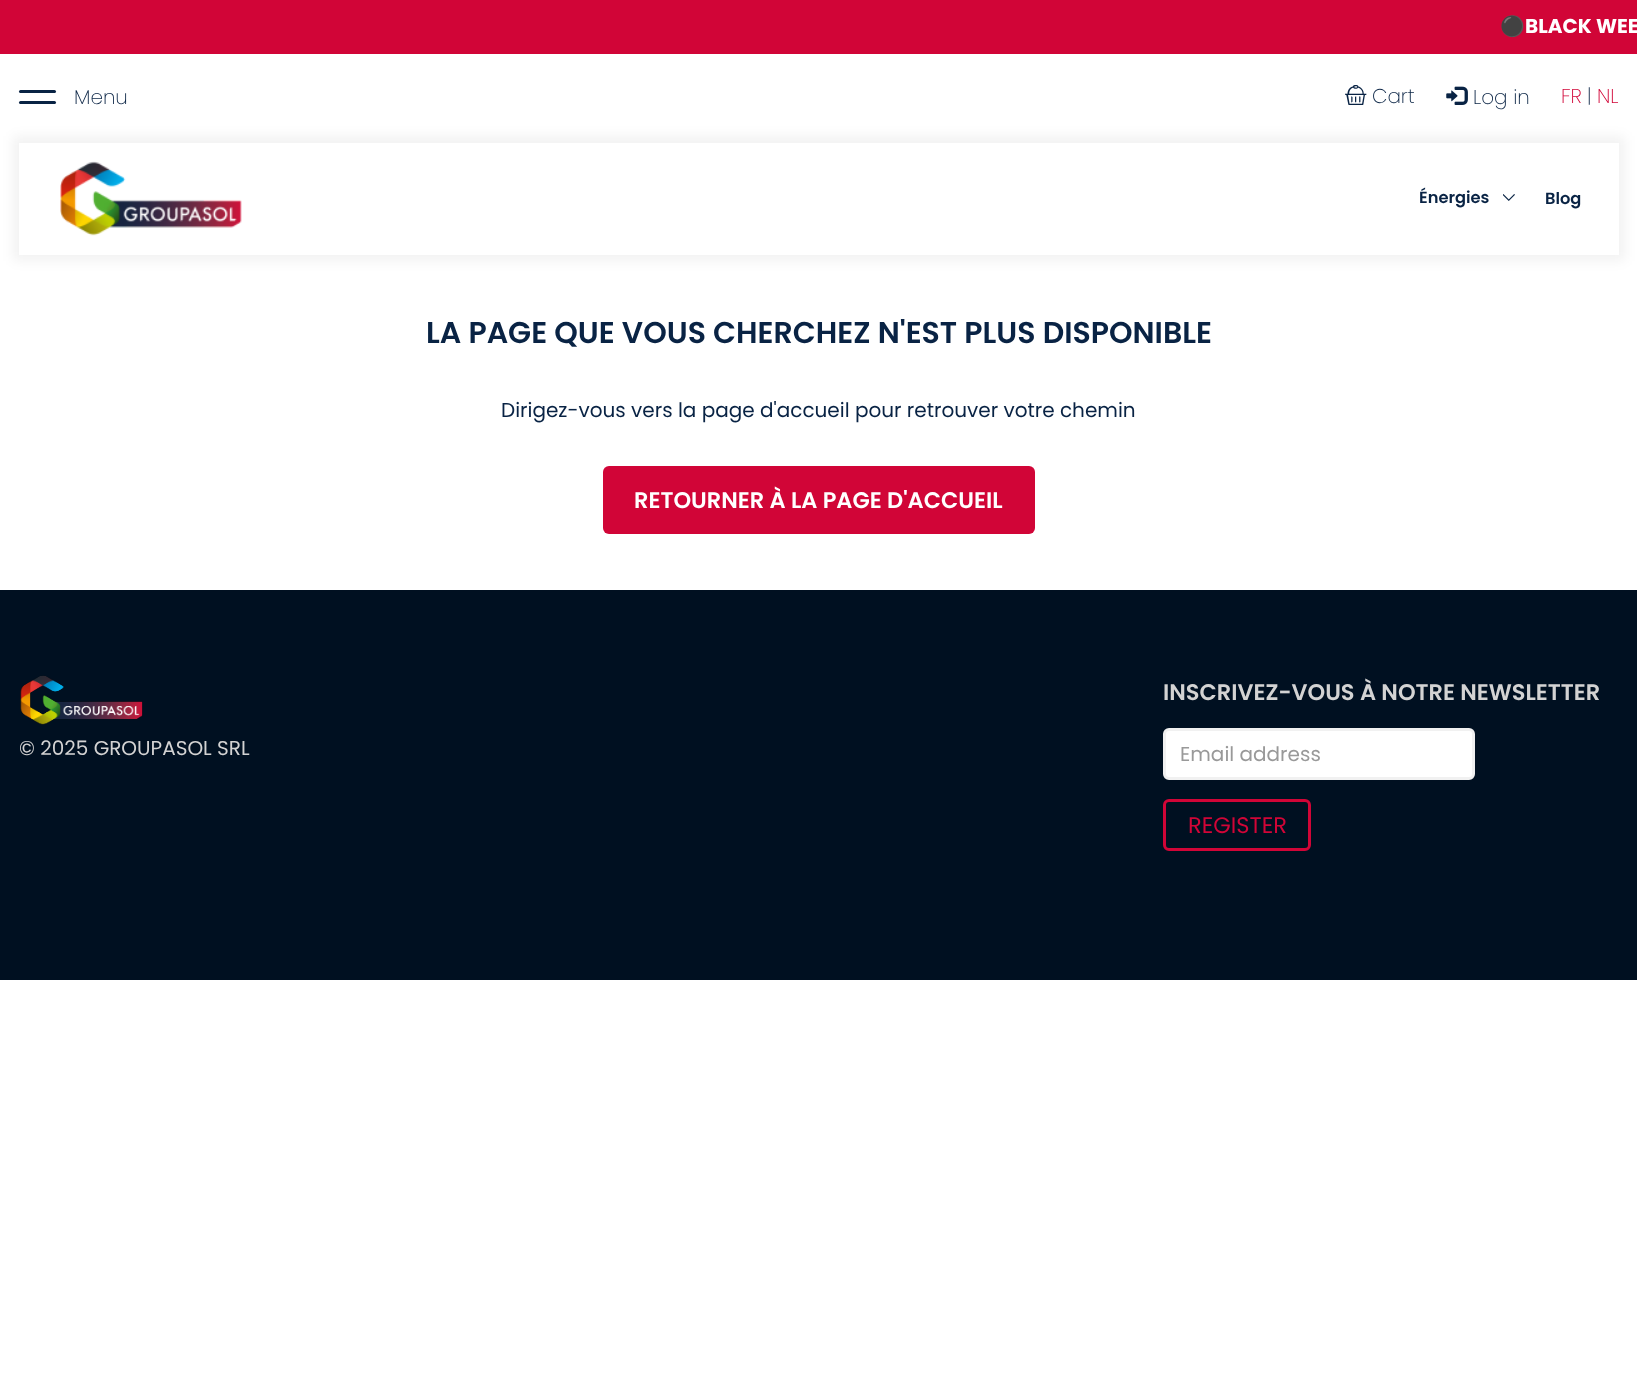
async function draw(canvas) {
	canvas.width = 1637;
	canvas.height = 1378;
	const c = canvas.getContext('2d');
	c.miterLimit = 4;
	c.fontKerning = 'none';
	async function loadImage(src) {
		const img = new Image();
		img.src = src;
		await img.decode();
		return img;
	}

	c.fillStyle = '#fff';
	c.fillRect(0, 0, 1637, 1378);
	c.fillStyle = '#d10537';
	c.fillRect(0, 0, 1637, 54);
	c.font = '20px Noto Color Emoji';
	c.fillStyle = '#fff';
	c.fillText('⚫', 1500, 33);
	c.font = 'bold 20px Poppins';
	c.fillText('BLACK WEE', 1525, 33);
	c.fillStyle = '#092344';
	c.beginPath();
	c.roundRect(19, 90, 37, 3, 1.5);
	c.fill();
	c.beginPath();
	c.roundRect(19, 101, 37, 3, 1.5);
	c.fill();
	c.font = '200 20px Poppins';
	c.fillText('Menu', 74, 104);
	c.drawImage(await loadImage('img1.png'), 1345, 85, 22, 20);
	c.fillText('Cart', 1372, 103);
	c.drawImage(await loadImage('img2.png'), 1446, 86, 22, 19);
	c.fillText('Log in', 1473, 104);
	c.fillStyle = '#d10537';
	c.fillText('FR', 1561, 103);
	c.fillStyle = '#092344';
	c.fillText('|', 1587, 103);
	c.fillStyle = '#d10537';
	c.fillText('NL', 1597, 103);
	c.save();
	c.beginPath();
	c.moveTo(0, 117);
	c.lineTo(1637, 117);
	c.lineTo(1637, 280);
	c.lineTo(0, 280);
	c.closePath();
	c.moveTo(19, 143);
	c.lineTo(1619, 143);
	c.lineTo(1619, 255);
	c.lineTo(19, 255);
	c.closePath();
	c.clip('evenodd');
	c.fillStyle = '#0000000d';
	c.filter = 'blur(6px)';
	c.beginPath();
	c.rect(13, 136, 1612, 125);
	c.fill();
	c.filter = 'none';
	c.restore();
	c.drawImage(await loadImage('img3.png'), 60, 161, 182, 75);
	c.font = '600 16.25px Poppins';
	c.fillStyle = '#092344';
	c.fillText('Énergies', 1419, 203);
	c.drawImage(await loadImage('img4.png'), 1503, 194, 12, 7);
	c.fillText('Blog', 1545, 204);
	c.font = '600 30px Poppins';
	c.fillText('LA PAGE QUE VOUS CHERCHEZ N\'EST PLUS DISPONIBLE', 426, 343);
	c.font = '20px Poppins';
	c.fillText('Dirigez-vous vers la page d\'accueil pour retrouver votre chemin', 501, 417);
	c.fillStyle = '#d10537';
	c.beginPath();
	c.roundRect(603, 466, 432, 68, 6);
	c.fill();
	c.font = '600 22.5px Poppins';
	c.fillStyle = '#fff';
	c.fillText('RETOURNER À LA PAGE D\'ACCUEIL', 634, 508);
	c.fillStyle = '#001021';
	c.fillRect(0, 590, 1637, 390);
	c.drawImage(await loadImage('img5.png'), 20, 675, 123, 50);
	c.font = '20px Poppins';
	c.fillStyle = '#d3d3d3';
	c.fillText('© 2025 GROUPASOL SRL', 19, 755);
	c.font = '600 22.5px Poppins';
	c.fillText('INSCRIVEZ-VOUS À NOTRE NEWSLETTER', 1163, 700);
	c.fillStyle = '#fff';
	c.beginPath();
	c.roundRect(1164.5, 729.5, 309, 49, 4.5);
	c.fill();
	c.strokeStyle = '#f1f1f1';
	c.lineWidth = 3;
	c.stroke();
	c.font = '20px Poppins';
	c.fillStyle = '#999';
	c.fillText('Email address', 1180, 761);
	c.beginPath();
	c.roundRect(1164.5, 800.5, 145, 49, 4.5);
	c.strokeStyle = '#d10537';
	c.stroke();
	c.font = '22.5px Poppins';
	c.fillStyle = '#d10537';
	c.fillText('REGISTER', 1188, 833);
}

draw(document.querySelector('canvas'));
